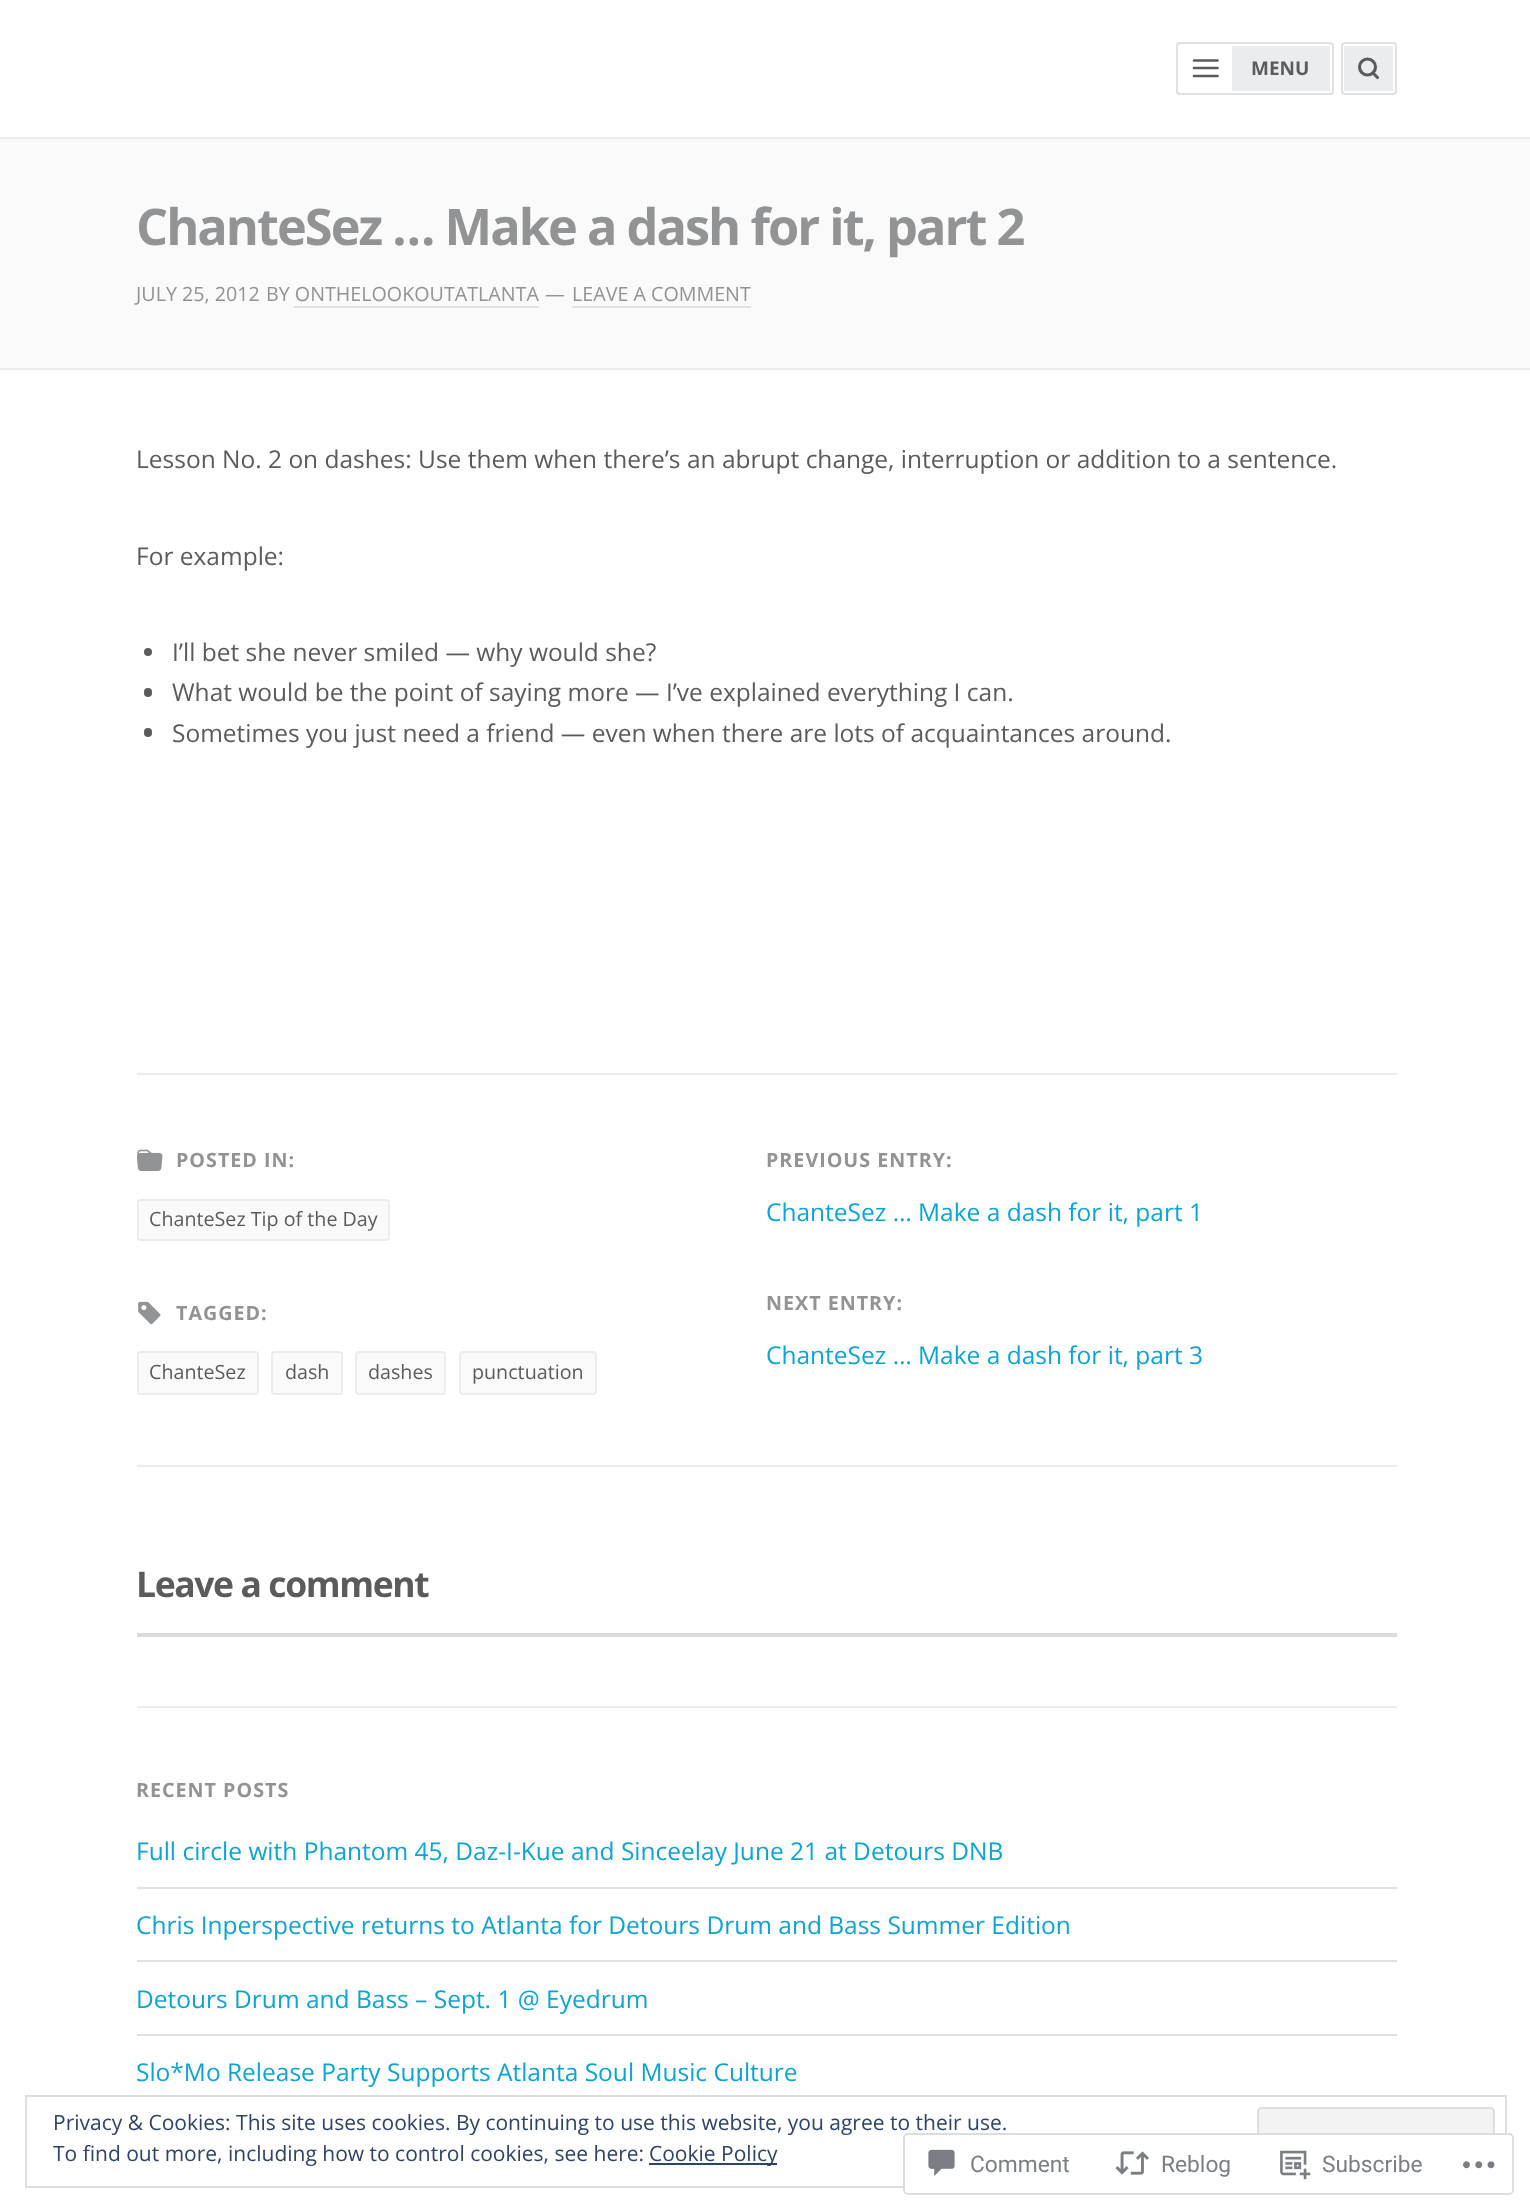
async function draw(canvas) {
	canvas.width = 1530;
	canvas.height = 2211;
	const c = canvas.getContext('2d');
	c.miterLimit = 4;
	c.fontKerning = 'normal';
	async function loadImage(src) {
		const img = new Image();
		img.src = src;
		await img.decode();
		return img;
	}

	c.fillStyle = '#fff';
	c.fillRect(0, 0, 1530, 2211);
	c.fillStyle = '#ebecee';
	c.fillRect(0, 137, 1530, 2);
	c.beginPath();
	c.roundRect(1176, 42, 158, 53, 4);
	c.fill();
	c.beginPath();
	c.roundRect(1179, 45, 152, 47, 1);
	c.strokeStyle = '#fff';
	c.lineWidth = 2;
	c.stroke();
	c.beginPath();
	c.roundRect(1177, 43, 156, 51, 3);
	c.strokeStyle = '#e0e1e3';
	c.stroke();
	c.fillStyle = '#fff';
	c.fillRect(1180, 46, 52, 45);
	c.beginPath();
	c.moveTo(1194, 68);
	c.lineTo(1217.5, 68);
	c.moveTo(1194, 60.5);
	c.lineTo(1217.5, 60.5);
	c.moveTo(1194, 76);
	c.lineTo(1217.5, 76);
	c.strokeStyle = '#5a5b5c';
	c.lineWidth = 2.6;
	c.lineCap = 'round';
	c.lineJoin = 'round';
	c.stroke();
	c.font = 'bold 19px Open Sans';
	c.fillStyle = '#5a5b5c';
	c.fillText('MENU', 1251, 75);
	c.beginPath();
	c.roundRect(1342, 43, 54, 51, 3);
	c.strokeStyle = '#e0e1e3';
	c.lineWidth = 2;
	c.lineJoin = 'miter';
	c.stroke();
	c.fillStyle = '#ebecee';
	c.fillRect(1344, 46, 49, 45);
	c.beginPath();
	c.arc(1367.5, 67, 8, 0, 2 * Math.PI);
	c.strokeStyle = '#5a5b5c';
	c.lineWidth = 3.1;
	c.stroke();
	c.beginPath();
	c.moveTo(1377.5, 77.5);
	c.lineTo(1373, 73);
	c.lineJoin = 'round';
	c.stroke();
	c.fillStyle = '#fafafa';
	c.fillRect(0, 139, 1530, 229);
	c.fillStyle = '#ebecee';
	c.fillRect(0, 368, 1530, 2);
	c.letterSpacing = '-2px';
	c.font = 'bold 50.5px Open Sans';
	c.fillStyle = '#929394';
	c.fillText('ChanteSez … Make a dash for it, part 2', 136, 245);
	c.letterSpacing = '0px';
	c.font = '19.7px Open Sans';
	c.fillText('JULY 25, 2012', 136, 301);
	c.fillText('BY ONTHELOOKOUTATLANTA', 266, 301);
	c.fillStyle = '#e0e1e3';
	c.fillRect(294, 306, 245, 2);
	c.fillStyle = '#929394';
	c.fillText('—', 545, 301);
	c.fillText('LEAVE A COMMENT', 572, 301);
	c.fillStyle = '#e0e1e3';
	c.fillRect(572, 306, 179, 2);
	c.font = '24.5px Open Sans';
	c.fillStyle = '#5a5b5c';
	c.fillText('Lesson No. 2 on dashes: Use them when there’s an abrupt change, interruption or addition to a sentence.', 136, 468);
	c.fillText('For example:', 136, 565);
	c.beginPath();
	c.arc(148, 652, 4, 0, 2 * Math.PI);
	c.fill();
	c.fillText('I’ll bet she never smiled — why would she?', 172, 661);
	c.beginPath();
	c.roundRect(144, 688, 8, 9, 4);
	c.fill();
	c.fillText('What would be the point of saying more — I’ve explained everything I can.', 172, 701);
	c.beginPath();
	c.roundRect(144, 728, 8, 9, 4);
	c.fill();
	c.fillText('Sometimes you just need a friend — even when there are lots of acquaintances around.', 172, 742);
	c.fillStyle = '#ebecee';
	c.fillRect(137, 1073, 1260, 2);
	c.drawImage(await loadImage('img1.png'), 137, 1149, 26, 22);
	c.letterSpacing = '1px';
	c.font = 'bold 19.7px Open Sans';
	c.fillStyle = '#929394';
	c.fillText('POSTED IN:', 176, 1167);
	c.fillStyle = '#fafafa';
	c.beginPath();
	c.roundRect(138, 1200, 251, 40, 3);
	c.fill();
	c.strokeStyle = '#ebecee';
	c.lineWidth = 2;
	c.lineJoin = 'miter';
	c.stroke();
	c.letterSpacing = '0px';
	c.font = '19.7px Open Sans';
	c.fillStyle = '#5a5b5c';
	c.fillText('ChanteSez Tip of the Day', 149, 1226);
	c.drawImage(await loadImage('img2.png'), 138, 1301, 23, 24);
	c.letterSpacing = '1px';
	c.font = 'bold 19.7px Open Sans';
	c.fillStyle = '#929394';
	c.fillText('TAGGED:', 176, 1320);
	c.fillStyle = '#fafafa';
	c.beginPath();
	c.roundRect(138, 1352, 120, 42, 3);
	c.fill();
	c.stroke();
	c.letterSpacing = '0px';
	c.font = '19.7px Open Sans';
	c.fillStyle = '#5a5b5c';
	c.fillText('ChanteSez', 149, 1379);
	c.fillStyle = '#fafafa';
	c.beginPath();
	c.roundRect(272, 1352, 70, 42, 3);
	c.fill();
	c.stroke();
	c.fillStyle = '#5a5b5c';
	c.fillText('dash', 285, 1379);
	c.fillStyle = '#fafafa';
	c.beginPath();
	c.roundRect(356, 1352, 89, 42, 3);
	c.fill();
	c.stroke();
	c.fillStyle = '#5a5b5c';
	c.fillText('dashes', 368, 1379);
	c.fillStyle = '#fafafa';
	c.beginPath();
	c.roundRect(460, 1352, 136, 42, 3);
	c.fill();
	c.stroke();
	c.fillStyle = '#5a5b5c';
	c.fillText('punctuation', 472, 1379);
	c.letterSpacing = '1px';
	c.font = 'bold 19.7px Open Sans';
	c.fillStyle = '#929394';
	c.fillText('PREVIOUS ENTRY:', 766, 1167);
	c.letterSpacing = '0px';
	c.font = '24.5px Open Sans';
	c.fillStyle = '#0da4d3';
	c.fillText('ChanteSez … Make a dash for it, part 1', 766, 1221);
	c.letterSpacing = '1px';
	c.font = 'bold 19.7px Open Sans';
	c.fillStyle = '#929394';
	c.fillText('NEXT ENTRY:', 766, 1310);
	c.letterSpacing = '0px';
	c.font = '24.5px Open Sans';
	c.fillStyle = '#0da4d3';
	c.fillText('ChanteSez … Make a dash for it, part 3', 766, 1364);
	c.fillStyle = '#ebecee';
	c.fillRect(137, 1465, 1260, 2);
	c.letterSpacing = '-1.4px';
	c.font = 'bold 35.5px Open Sans';
	c.fillStyle = '#5a5b5c';
	c.fillText('Leave a comment', 136, 1597);
	c.fillStyle = '#dcdcde';
	c.fillRect(137, 1633, 1260, 4);
	c.fillStyle = '#ebecee';
	c.fillRect(137, 1706, 1260, 2);
	c.letterSpacing = '1px';
	c.font = 'bold 19.7px Open Sans';
	c.fillStyle = '#929394';
	c.fillText('RECENT POSTS', 136, 1797);
	c.letterSpacing = '0px';
	c.font = '24.5px Open Sans';
	c.fillStyle = '#0da4d3';
	c.fillText('Full circle with Phantom 45, Daz-I-Kue and Sinceelay June 21 at Detours DNB', 136, 1860);
	c.fillStyle = '#e0e1e3';
	c.fillRect(137, 1887, 1260, 2);
	c.fillStyle = '#0da4d3';
	c.fillText('Chris Inperspective returns to Atlanta for Detours Drum and Bass Summer Edition', 136, 1934);
	c.fillStyle = '#e0e1e3';
	c.fillRect(137, 1960, 1260, 2);
	c.fillStyle = '#0da4d3';
	c.fillText('Detours Drum and Bass – Sept. 1 @ Eyedrum', 136, 2008);
	c.fillStyle = '#e0e1e3';
	c.fillRect(137, 2034, 1260, 2);
	c.fillStyle = '#0da4d3';
	c.fillText('Slo*Mo Release Party Supports Atlanta Soul Music Culture', 136, 2081);
	c.strokeStyle = '#dedede';
	c.strokeRect(26, 2096, 1480, 91);
	c.font = '21px Open Sans';
	c.fillStyle = '#2e4467';
	c.fillText('Privacy & Cookies: This site uses cookies. By continuing to use this website, you agree to their use.', 53, 2130);
	c.fillStyle = '#f3f3f3';
	c.beginPath();
	c.roundRect(1258, 2108, 236, 66, 4);
	c.fill();
	c.stroke();
	c.fillStyle = '#2e4467';
	c.fillText('To find out more, including how to control cookies, see here:', 53, 2161);
	c.fillRect(649, 2163, 128, 2);
	c.fillText('Cookie Policy', 649, 2161);
	c.fillStyle = '#fffffffa';
	c.beginPath();
	c.roundRect(903, 2133, 611, 62, 5);
	c.fill();
	c.beginPath();
	c.roundRect(904, 2134, 609, 60, 4);
	c.strokeStyle = '#dcdcdefa';
	c.stroke();
	c.drawImage(await loadImage('img3.png'), 928, 2149, 27, 27);
	c.font = '22.75px Roboto';
	c.fillStyle = '#7b7f85';
	c.fillText('Comment', 970, 2172);
	c.drawImage(await loadImage('img4.png'), 1115, 2151, 34, 24);
	c.fillText('Reblog', 1161, 2172);
	c.drawImage(await loadImage('img5.png'), 1280, 2150, 31, 30);
	c.fillText('Subscribe', 1322, 2172);
	c.drawImage(await loadImage('img6.png'), 1463, 2161, 32, 8);
}

draw(document.querySelector('canvas'));
